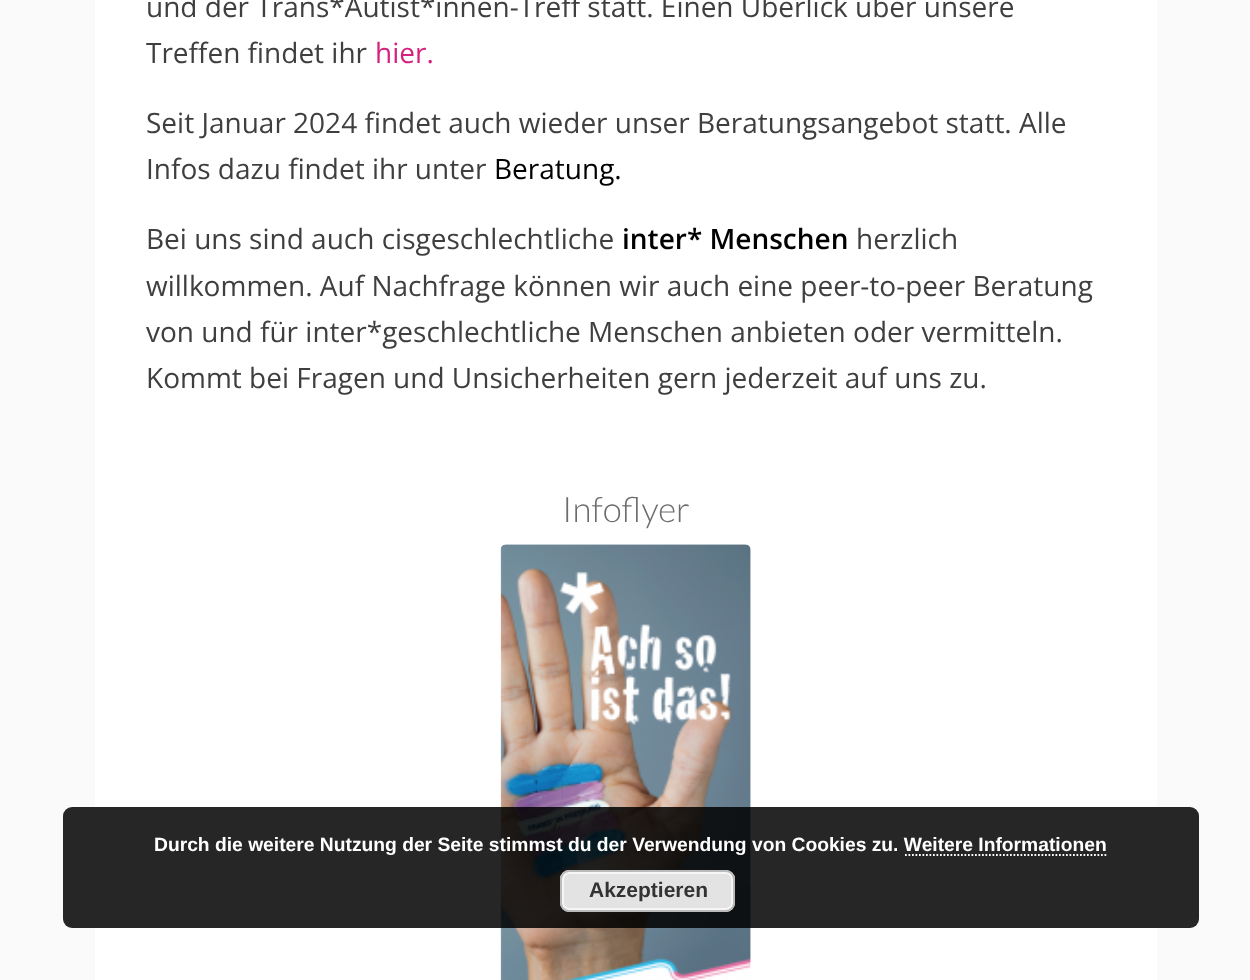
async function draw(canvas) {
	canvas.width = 1250;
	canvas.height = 980;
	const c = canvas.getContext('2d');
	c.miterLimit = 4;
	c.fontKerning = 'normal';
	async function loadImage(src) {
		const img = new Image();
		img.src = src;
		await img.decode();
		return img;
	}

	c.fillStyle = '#fafafa';
	c.fillRect(0, 0, 1250, 980);
	c.fillStyle = '#fff';
	c.fillRect(95, 0, 1062, 980);
	c.font = '28px Open Sans';
	c.fillStyle = '#403f40';
	c.fillText('und der Trans*Autist*innen-Treff statt. Einen Überlick über unsere', 146, 17);
	c.fillText('Treffen findet ihr', 146, 63);
	c.fillStyle = '#d6227f';
	c.fillText('hier.', 375, 63);
	c.fillStyle = '#403f40';
	c.fillText('Seit Januar 2024 findet auch wieder unser Beratungsangebot statt. Alle', 146, 133);
	c.fillText('Infos dazu findet ihr unter', 146, 179);
	c.fillStyle = '#000';
	c.fillText('Beratung.', 494, 179);
	c.fillStyle = '#403f40';
	c.fillText('Bei uns sind auch cisgeschlechtliche', 146, 249);
	c.font = '600 28px Open Sans';
	c.fillStyle = '#000';
	c.fillText('inter* Menschen', 622, 249);
	c.font = '28px Open Sans';
	c.fillStyle = '#403f40';
	for (const [text, x, y] of [
		['herzlich', 856, 249],
		['willkommen. Auf Nachfrage können wir auch eine peer-to-peer Beratung', 146, 296],
		['von und für inter*geschlechtliche Menschen anbieten oder vermitteln.', 146, 342],
		['Kommt bei Fragen und Unsicherheiten gern jederzeit auf uns zu.', 146, 388],
	]) {
		c.fillText(text, x, y);
	}
	c.font = '300 35px Lato';
	c.fillStyle = '#6d6d6d';
	c.fillText('Infoflyer', 562, 522);
	c.drawImage(await loadImage('img1.png'), 500, 544, 251, 436);
	c.fillStyle = '#000000d9';
	c.beginPath();
	c.roundRect(63, 807, 1136, 121, 9);
	c.fill();
	c.font = 'bold 19.25px Liberation Sans';
	c.fillStyle = '#fff';
	c.fillText('Durch die weitere Nutzung der Seite stimmst du der Verwendung von Cookies zu. Weitere Informationen', 154, 851);
	c.beginPath();
	c.moveTo(905, 855);
	c.lineTo(1108, 855);
	c.strokeStyle = '#fff';
	c.lineWidth = 1.8;
	c.setLineDash([1.75, 1.75]);
	c.stroke();
	c.fillStyle = '#e3e3e3';
	c.beginPath();
	c.roundRect(560, 870, 175, 42, 9);
	c.fill();
	c.beginPath();
	c.roundRect(563, 873, 169, 36, 6);
	c.strokeStyle = '#f6f6f6';
	c.lineWidth = 2;
	c.setLineDash([]);
	c.stroke();
	c.beginPath();
	c.roundRect(561, 871, 173, 40, 8);
	c.strokeStyle = '#bbb';
	c.stroke();
	c.font = 'bold 21px Liberation Sans';
	c.fillStyle = '#333';
	c.fillText('Akzeptieren', 589, 897);
}

draw(document.querySelector('canvas'));
